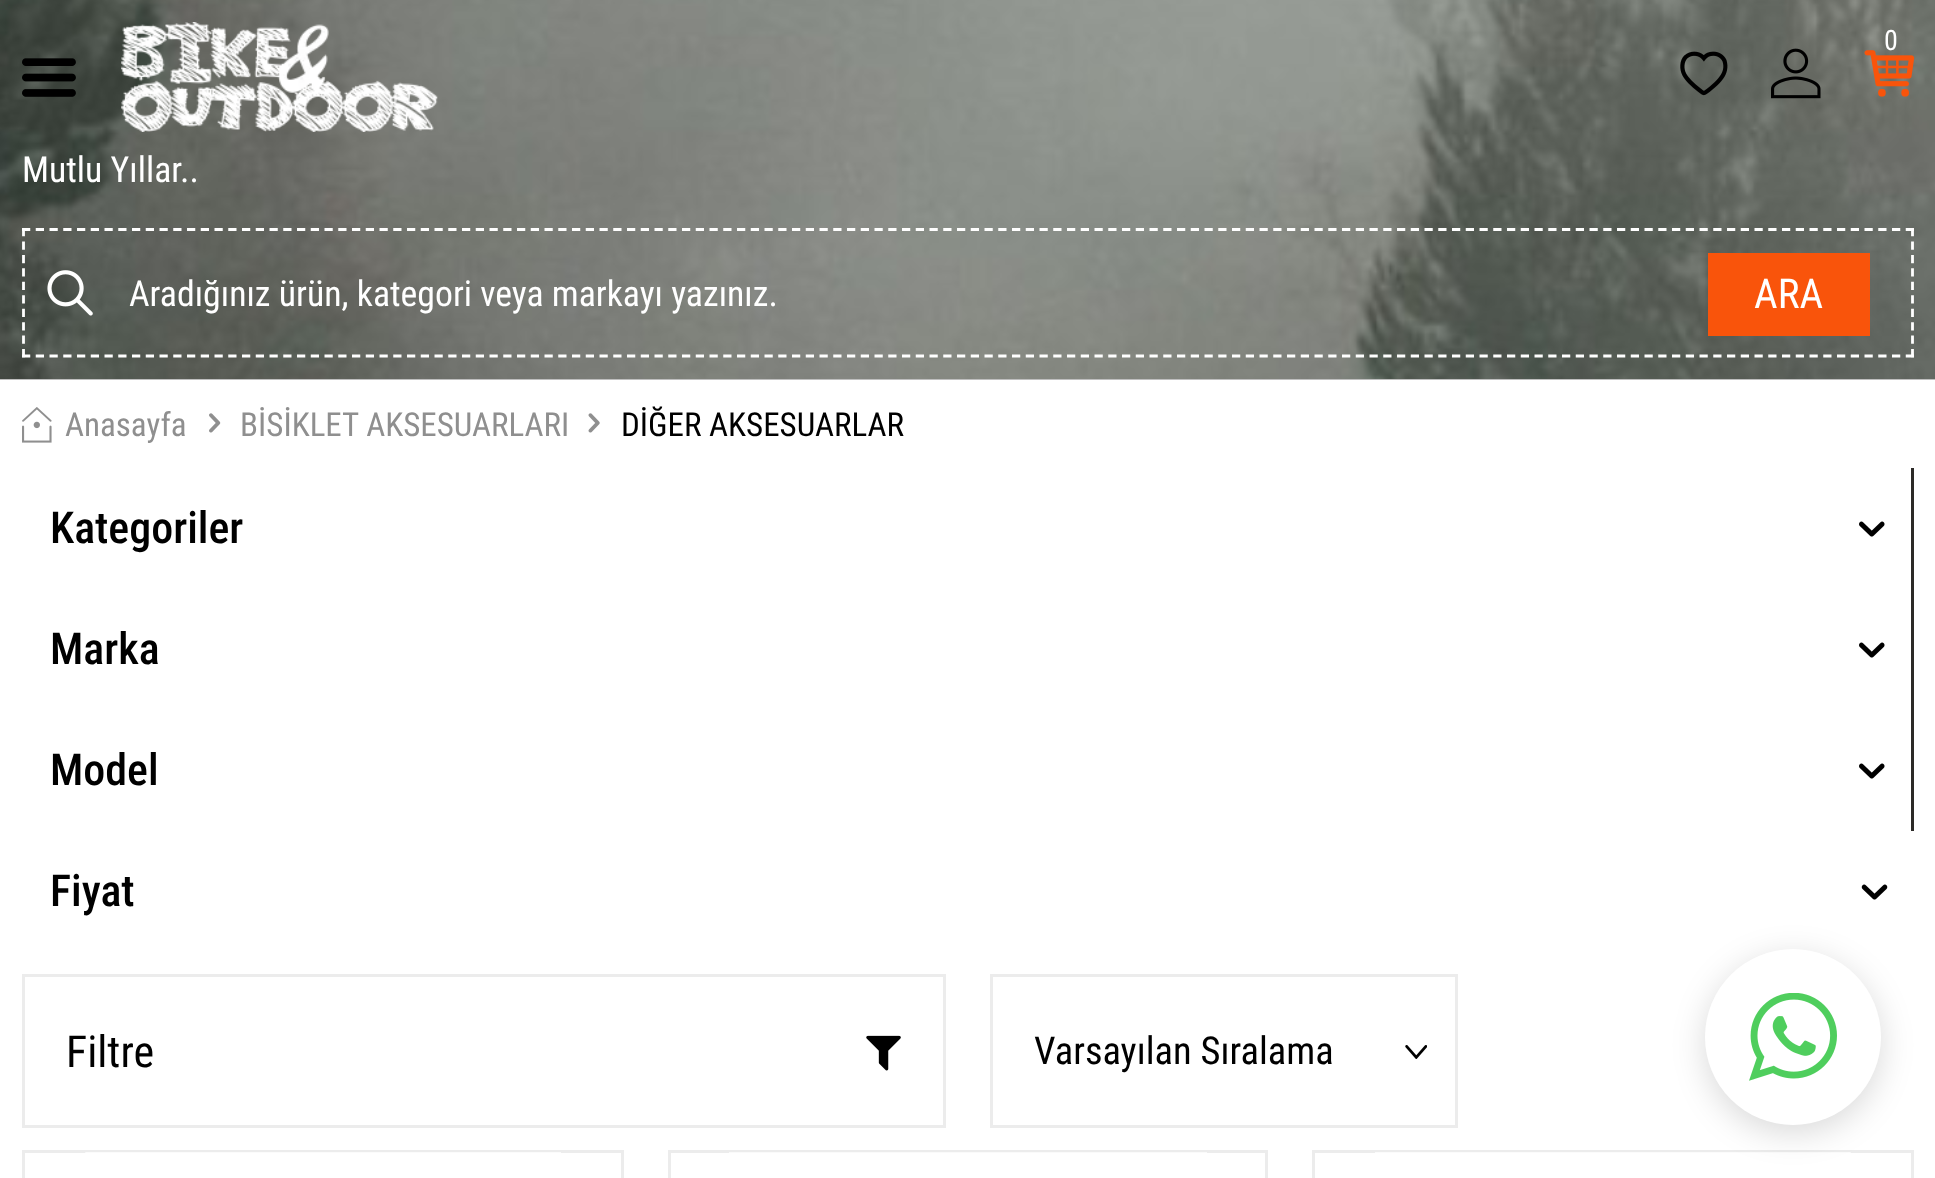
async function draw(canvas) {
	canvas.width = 1935;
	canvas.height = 1178;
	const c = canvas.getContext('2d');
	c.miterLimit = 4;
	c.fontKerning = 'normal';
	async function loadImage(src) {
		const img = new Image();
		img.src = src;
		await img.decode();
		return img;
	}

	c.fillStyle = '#fff';
	c.fillRect(0, 0, 1935, 1178);
	c.drawImage(await loadImage('img1.png'), 0, 0, 1935, 380);
	c.drawImage(await loadImage('img2.png'), 121, 22, 317, 110);
	c.drawImage(await loadImage('img3.png'), 1864, 50, 51, 47);
	c.font = '28px Roboto Condensed';
	c.fillText('0', 1884, 50);
	c.drawImage(await loadImage('img4.png'), 1680, 51, 48, 45);
	c.drawImage(await loadImage('img5.png'), 1771, 48, 50, 51);
	c.drawImage(await loadImage('img6.png'), 22, 58, 54, 39);
	c.font = '35.75px Roboto Condensed';
	c.fillText('Mutlu Yıllar..', 22, 182);
	c.beginPath();
	c.moveTo(22, 229.5);
	c.lineTo(1914, 229.5);
	c.strokeStyle = '#fff';
	c.lineWidth = 2.8;
	c.setLineDash([8.25, 5.5]);
	c.stroke();
	c.beginPath();
	c.moveTo(1912.5, 228);
	c.lineTo(1912.5, 357.5);
	c.setLineDash([8.25, 5.2]);
	c.stroke();
	c.beginPath();
	c.moveTo(22, 356);
	c.lineTo(1914, 356);
	c.setLineDash([8.25, 5.5]);
	c.stroke();
	c.beginPath();
	c.moveTo(23.5, 228);
	c.lineTo(23.5, 357.5);
	c.setLineDash([8.25, 5.2]);
	c.stroke();
	c.drawImage(await loadImage('img7.png'), 47, 270, 46, 46);
	c.fillText('Aradığınız ürün, kategori veya markayı yazınız.', 129, 306);
	c.fillStyle = '#f9540b';
	c.fillRect(1708, 253, 162, 83);
	c.font = '41px Roboto Condensed';
	c.fillStyle = '#fff';
	c.fillText('ARA', 1754, 308);
	c.drawImage(await loadImage('img8.png'), 22, 407, 30, 36);
	c.font = '33px Roboto Condensed';
	c.fillStyle = '#8f8f8f';
	c.fillText('Anasayfa', 65, 436);
	c.drawImage(await loadImage('img9.png'), 209, 413, 12, 20);
	c.fillText('BİSİKLET AKSESUARLARI', 240, 436);
	c.drawImage(await loadImage('img10.png'), 588, 413, 12, 20);
	c.fillStyle = '#000';
	c.fillText('DİĞER AKSESUARLAR', 621, 436);
	c.fillStyle = '#2c2a28';
	c.fillRect(1911, 468, 3, 363);
	c.font = '500 44px Roboto Condensed';
	c.fillStyle = '#000';
	c.fillText('Kategoriler', 50, 543);
	c.drawImage(await loadImage('img11.png'), 1859, 521, 26, 16);
	c.fillText('Marka', 50, 664);
	c.drawImage(await loadImage('img11.png'), 1859, 642, 26, 16);
	c.fillText('Model', 50, 785);
	c.drawImage(await loadImage('img11.png'), 1859, 763, 26, 16);
	c.fillText('Fiyat', 50, 906);
	c.drawImage(await loadImage('img12.png'), 1861, 884, 27, 16);
	c.strokeStyle = '#ececec';
	c.lineWidth = 3;
	c.setLineDash([]);
	c.strokeRect(23.5, 975.5, 921, 151);
	c.font = '44px Roboto Condensed';
	c.fillText('Filtre', 66, 1067);
	c.drawImage(await loadImage('img13.png'), 866, 1035, 35, 36);
	c.drawImage(await loadImage('img14.png'), 1405, 1045, 22, 14);
	c.strokeRect(991.5, 975.5, 465, 151);
	c.font = '38.5px Roboto Condensed';
	c.fillText('Varsayılan Sıralama', 1034, 1064);
	c.strokeRect(23.5, 1151.5, 599, 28);
	c.drawImage(await loadImage('img15.png'), 85, 1152, 476, 1);
	c.strokeRect(669.5, 1151.5, 597, 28);
	c.fillStyle = '#fafafa';
	c.fillRect(729, 1152, 478, 1);
	c.strokeRect(1313.5, 1151.5, 599, 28);
	c.drawImage(await loadImage('img16.png'), 1375, 1152, 476, 1);
	c.fillStyle = '#00000026';
	c.filter = 'blur(16.5px)';
	c.beginPath();
	c.roundRect(1705, 957, 176, 176, 88);
	c.fill();
	c.filter = 'none';
	c.fillStyle = '#fff';
	c.beginPath();
	c.arc(1793, 1037, 88, 0, 2 * Math.PI);
	c.fill();
	c.drawImage(await loadImage('img17.png'), 1749, 993, 88, 88);
}

draw(document.querySelector('canvas'));
